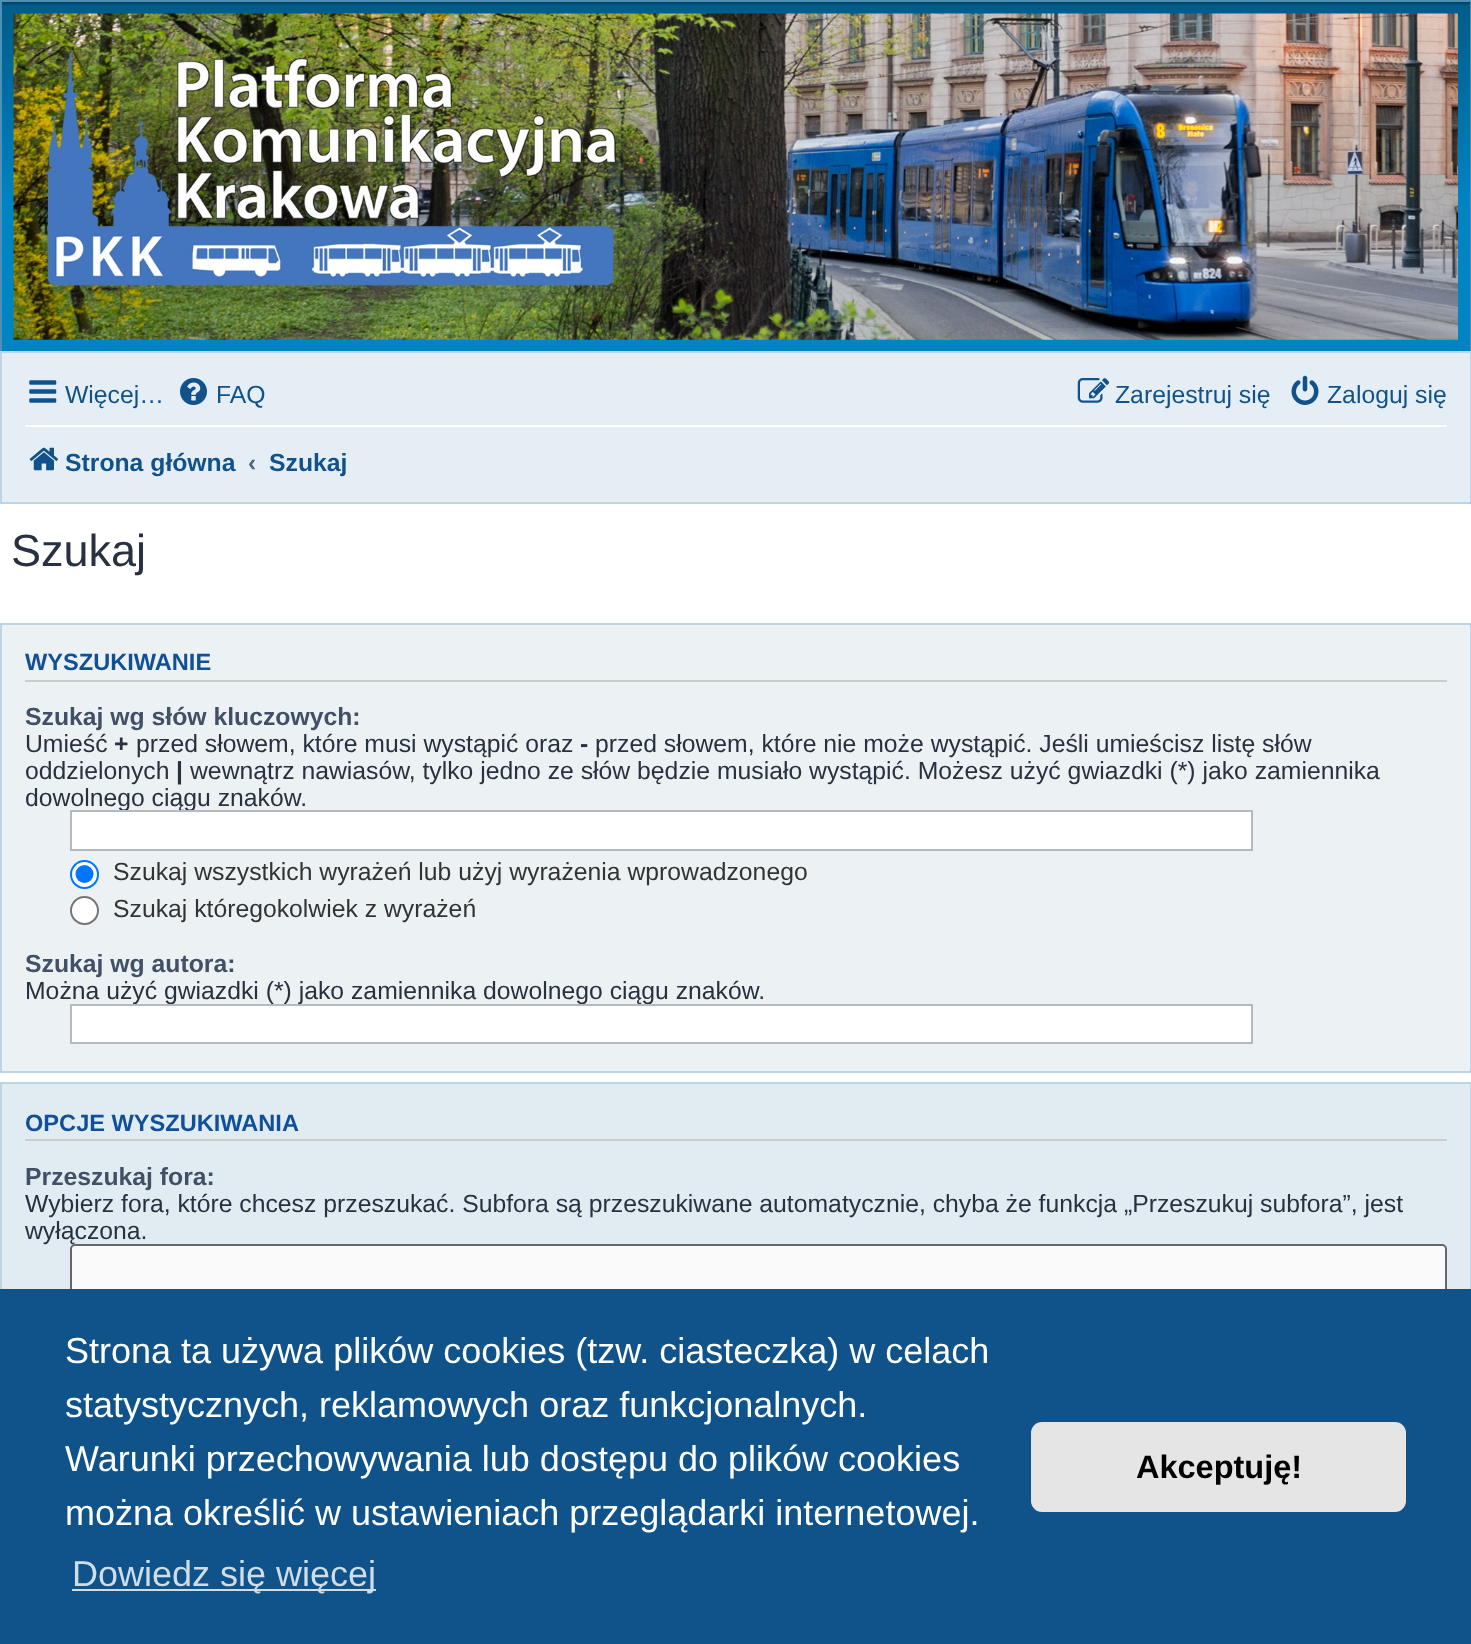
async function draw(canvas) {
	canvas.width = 1471;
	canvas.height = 1644;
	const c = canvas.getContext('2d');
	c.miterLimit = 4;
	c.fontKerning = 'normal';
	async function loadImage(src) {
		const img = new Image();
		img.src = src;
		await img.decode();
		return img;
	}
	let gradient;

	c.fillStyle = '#fff';
	c.fillRect(0, 0, 1471, 1644);
	gradient = c.createLinearGradient(736, 2.2, 736, 351);
	gradient.addColorStop(0, '#003f5e');
	gradient.addColorStop(0.01, '#005c8a');
	gradient.addColorStop(0.59, '#0084c4');
	gradient.addColorStop(1, '#0084c4');
	c.fillStyle = gradient;
	c.fillRect(2, 2, 1468, 349);
	c.strokeStyle = '#4f91b6';
	c.lineWidth = 2;
	c.strokeRect(1, 1, 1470, 351);
	c.drawImage(await loadImage('img1.png'), 13, 13, 1445, 327);
	c.fillStyle = '#e5eef5';
	c.beginPath();
	c.rect(1, 352, 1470, 151);
	c.fill();
	c.strokeStyle = '#bcd4e3';
	c.stroke();
	c.drawImage(await loadImage('img2.png'), 29, 380, 28, 23);
	c.font = '24.75px Liberation Sans';
	c.fillStyle = '#105289';
	c.fillText('Więcej…', 65, 403);
	c.drawImage(await loadImage('img3.png'), 180, 378, 27, 27);
	c.fillText('FAQ', 216, 403);
	c.drawImage(await loadImage('img4.png'), 1077, 378, 33, 25);
	c.fillText('Zarejestruj się', 1115, 403);
	c.drawImage(await loadImage('img5.png'), 1291, 375, 28, 30);
	c.fillText('Zaloguj się', 1327, 403);
	c.fillStyle = '#fff';
	c.fillRect(25, 425, 1422, 2);
	c.drawImage(await loadImage('img6.png'), 29, 447, 29, 24);
	c.font = 'bold 24.75px Liberation Sans';
	c.fillStyle = '#105289';
	c.fillText('Strona główna', 65, 471);
	c.fillStyle = '#536482';
	c.fillText('‹', 248, 471);
	c.fillStyle = '#105289';
	c.fillText('Szukaj', 269, 471);
	c.font = '45px Liberation Sans';
	c.fillStyle = '#28313f';
	c.fillText('Szukaj', 11, 566);
	c.fillStyle = '#ecf1f3';
	c.beginPath();
	c.rect(1, 624, 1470, 448);
	c.fill();
	c.stroke();
	c.fillStyle = '#ccc';
	c.fillRect(25, 680, 1422, 2);
	c.font = 'bold 23.6px Liberation Sans';
	c.fillStyle = '#115098';
	c.fillText('WYSZUKIWANIE', 25, 670);
	c.font = 'bold 24.75px Liberation Sans';
	c.fillStyle = '#425067';
	c.fillText('Szukaj wg słów kluczowych:', 25, 725);
	c.font = '24.75px Liberation Sans';
	c.fillStyle = '#28313f';
	c.fillText('Umieść', 25, 752);
	c.font = 'bold 24.75px Liberation Sans';
	c.fillText('+', 114, 752);
	c.font = '24.75px Liberation Sans';
	c.fillText('przed słowem, które musi wystąpić oraz', 136, 752);
	c.font = 'bold 24.75px Liberation Sans';
	c.fillText('-', 580, 752);
	c.font = '24.75px Liberation Sans';
	c.fillText('przed słowem, które nie może wystąpić. Jeśli umieścisz listę słów', 595, 752);
	c.fillText('oddzielonych', 25, 779);
	c.font = 'bold 24.75px Liberation Sans';
	c.fillText('|', 176, 779);
	c.font = '24.75px Liberation Sans';
	c.fillText('wewnątrz nawiasów, tylko jedno ze słów będzie musiało wystąpić. Możesz użyć gwiazdki (*) jako zamiennika', 190, 779);
	c.fillText('dowolnego ciągu znaków.', 25, 806);
	c.fillStyle = '#fff';
	c.beginPath();
	c.rect(71, 811, 1181, 39);
	c.fill();
	c.strokeStyle = '#b4bac0';
	c.stroke();
	c.beginPath();
	c.arc(84.5, 874.5, 13.5, 0, 2 * Math.PI);
	c.fill();
	c.strokeStyle = '#0075ff';
	c.stroke();
	c.fillStyle = '#0075ff';
	c.beginPath();
	c.arc(84.5, 874, 9, 0, 2 * Math.PI);
	c.fill();
	c.fillStyle = '#333';
	c.fillText('Szukaj wszystkich wyrażeń lub użyj wyrażenia wprowadzonego', 113, 880);
	c.fillStyle = '#fff';
	c.beginPath();
	c.arc(84.5, 910.5, 13.5, 0, 2 * Math.PI);
	c.fill();
	c.strokeStyle = '#767676';
	c.stroke();
	c.fillStyle = '#333';
	c.fillText('Szukaj któregokolwiek z wyrażeń', 113, 917);
	c.font = 'bold 24.75px Liberation Sans';
	c.fillStyle = '#425067';
	c.fillText('Szukaj wg autora:', 25, 972);
	c.font = '24.75px Liberation Sans';
	c.fillStyle = '#28313f';
	c.fillText('Można użyć gwiazdki (*) jako zamiennika dowolnego ciągu znaków.', 25, 999);
	c.fillStyle = '#fff';
	c.beginPath();
	c.rect(71, 1005, 1181, 38);
	c.fill();
	c.strokeStyle = '#b4bac0';
	c.stroke();
	c.fillStyle = '#e1ebf2';
	c.fillRect(2, 1084, 1468, 205);
	c.strokeStyle = '#bcd4e3';
	c.strokeRect(1, 1083, 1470, 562);
	c.fillStyle = '#ccc';
	c.fillRect(25, 1139, 1422, 2);
	c.font = 'bold 23.6px Liberation Sans';
	c.fillStyle = '#115098';
	c.fillText('OPCJE WYSZUKIWANIA', 25, 1131);
	c.font = 'bold 24.75px Liberation Sans';
	c.fillStyle = '#425067';
	c.fillText('Przeszukaj fora:', 25, 1185);
	c.font = '24.75px Liberation Sans';
	c.fillStyle = '#28313f';
	c.fillText('Wybierz fora, które chcesz przeszukać. Subfora są przeszukiwane automatycznie, chyba że funkcja „Przeszukuj subfora”, jest', 25, 1212);
	c.fillText('wyłączona.', 25, 1239);
	c.fillStyle = '#fafafa';
	c.beginPath();
	c.roundRect(71, 1245, 1375, 262, 4);
	c.fill();
	c.strokeStyle = '#666';
	c.stroke();
	c.fillStyle = '#0f538a';
	c.fillRect(0, 1289, 1471, 355);
	c.font = '36px Liberation Sans';
	c.fillStyle = '#fff';
	for (const [text, x, y] of [
		['Strona ta używa plików cookies (tzw. ciasteczka) w celach', 65, 1363],
		['statystycznych, reklamowych oraz funkcjonalnych.', 65, 1417],
		['Warunki przechowywania lub dostępu do plików cookies', 65, 1471],
		['można określić w ustawieniach przeglądarki internetowej.', 65, 1525],
	]) {
		c.fillText(text, x, y);
	}
	c.fillStyle = '#cfdde8';
	c.fillRect(72, 1589, 304, 2);
	c.fillText('Dowiedz się więcej', 72, 1586);
	c.fillStyle = '#e5e5e5';
	c.beginPath();
	c.roundRect(1031, 1422, 375, 90, 11);
	c.fill();
	c.font = 'bold 32.5px Liberation Sans';
	c.fillStyle = '#000';
	c.fillText('Akceptuję!', 1136, 1478);
}

draw(document.querySelector('canvas'));
